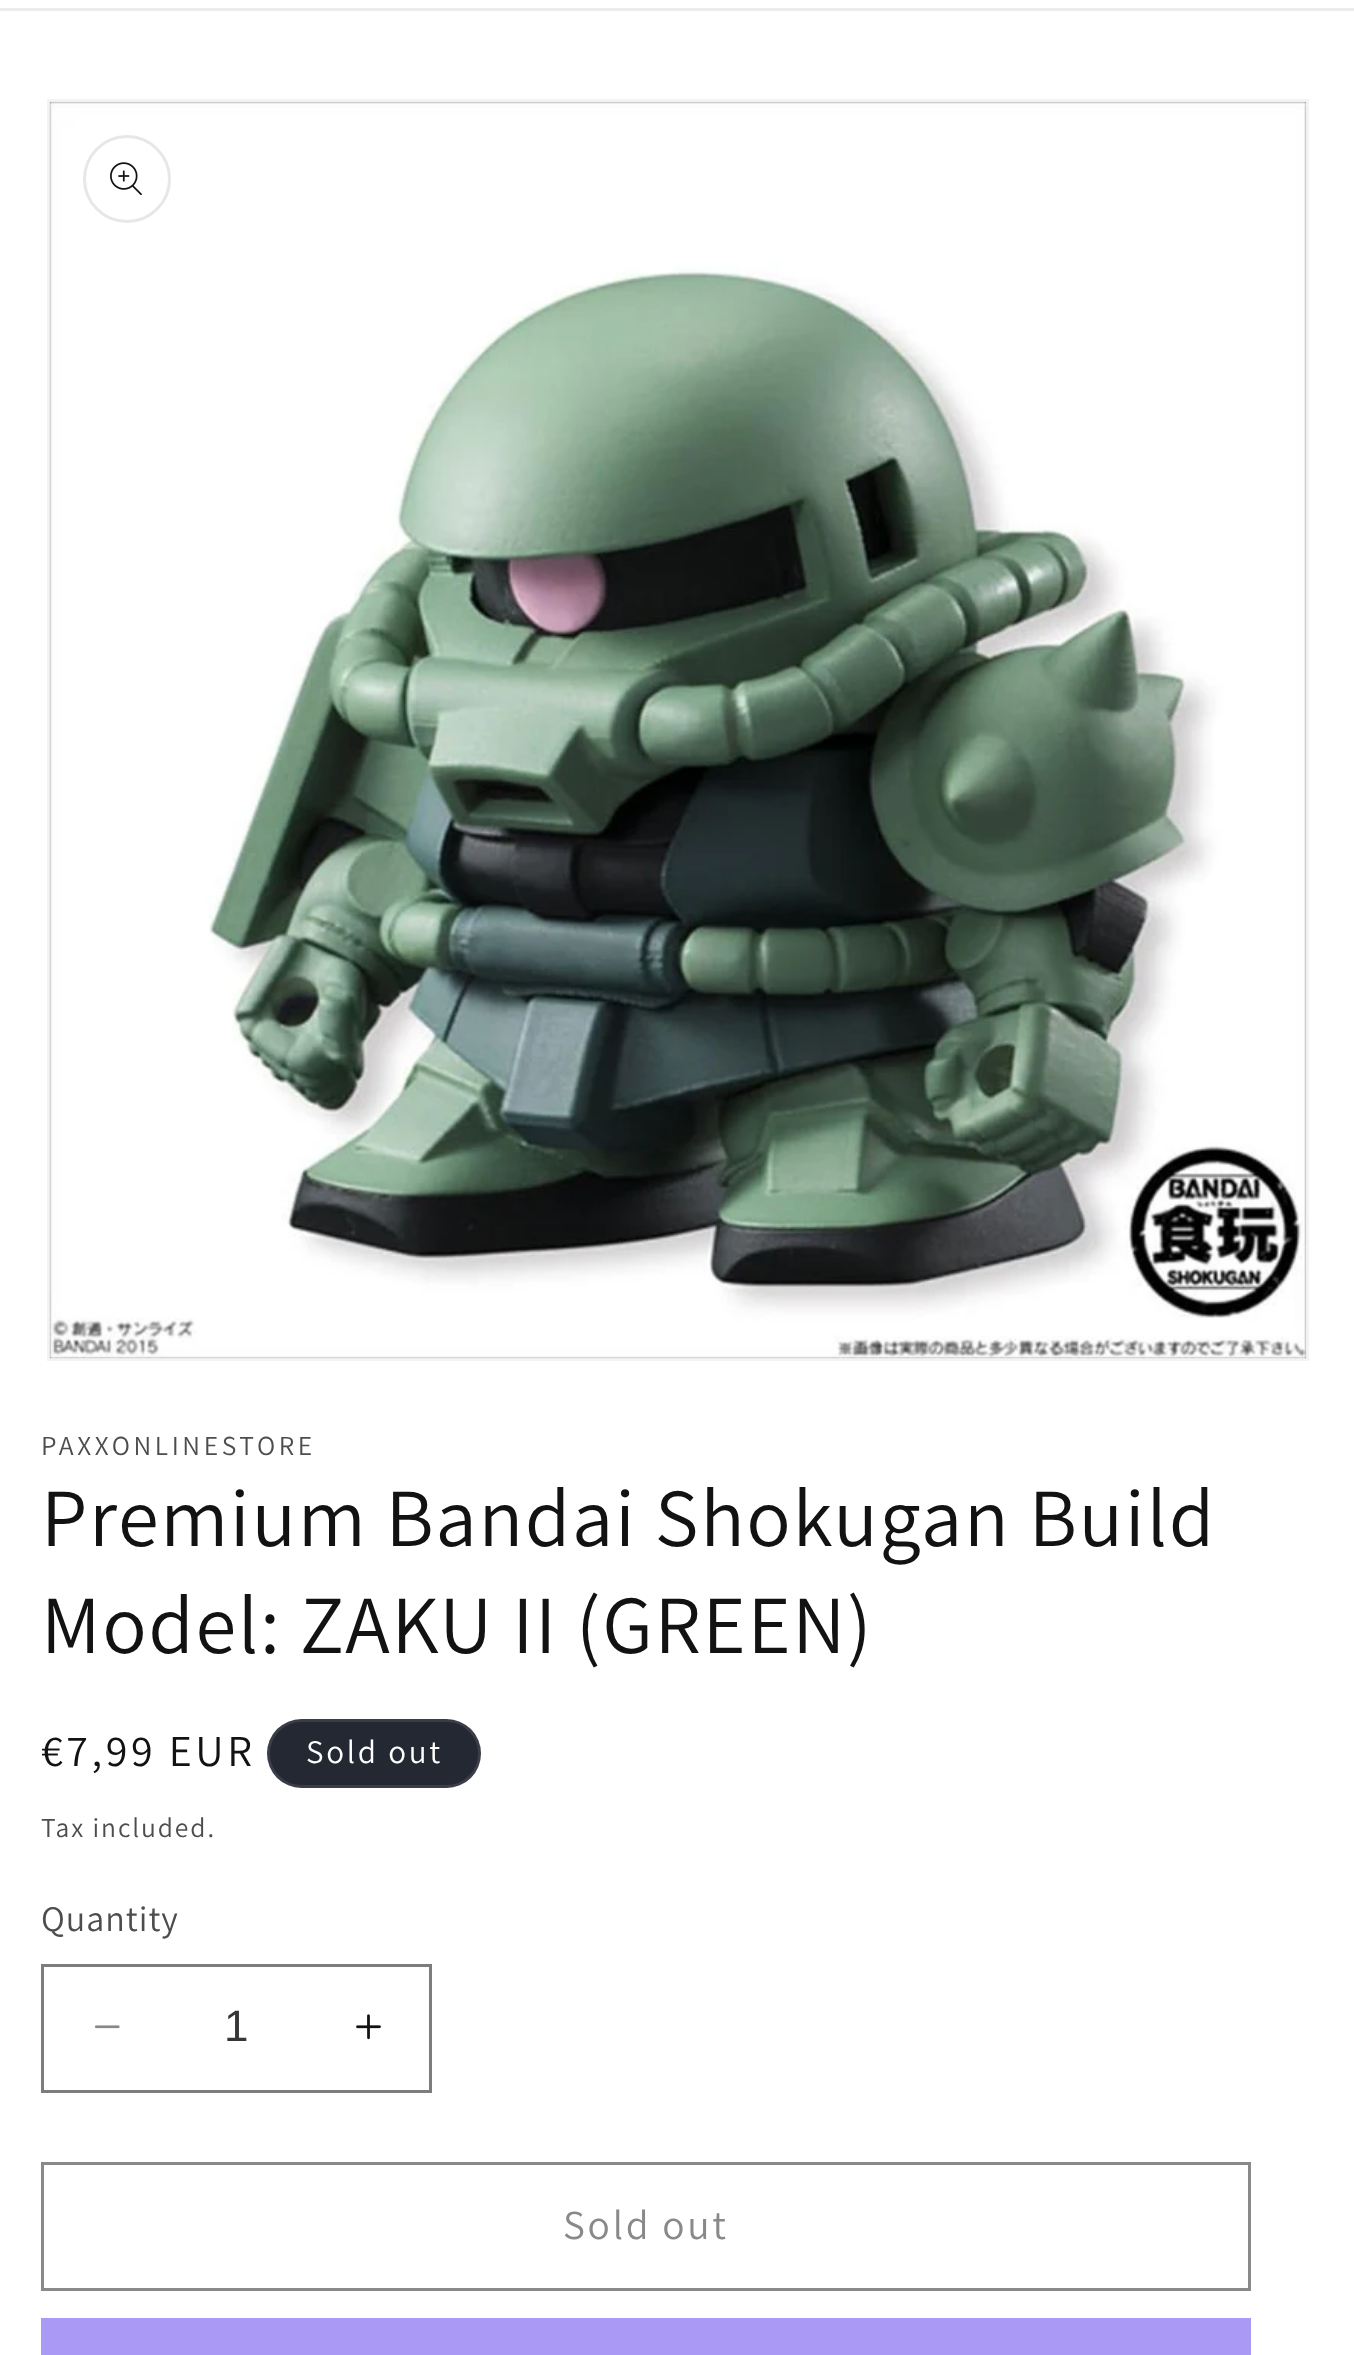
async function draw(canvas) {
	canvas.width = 1354;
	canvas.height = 2355;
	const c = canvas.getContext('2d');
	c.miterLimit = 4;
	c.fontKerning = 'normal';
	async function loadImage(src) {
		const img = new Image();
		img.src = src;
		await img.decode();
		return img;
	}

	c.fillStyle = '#fff';
	c.fillRect(0, 0, 1354, 2355);
	c.fillStyle = '#ececec';
	c.fillRect(0, 8, 1354, 3);
	c.strokeStyle = '#f3f3f3';
	c.lineWidth = 3;
	c.strokeRect(48.5, 100.5, 1259, 1259);
	c.drawImage(await loadImage('img1.png'), 49, 101, 1258, 1258);
	c.beginPath();
	c.arc(127, 179, 42.5, 0, 2 * Math.PI);
	c.strokeStyle = '#e7e7e7';
	c.stroke();
	c.drawImage(await loadImage('img2.png'), 110, 162, 32, 34);
	c.letterSpacing = '3.6px';
	c.font = '27.5px Assistant';
	c.fillStyle = '#4d4d4d';
	c.fillText('PAXXONLINESTORE', 41, 1455);
	c.letterSpacing = '1.65px';
	c.font = '82.5px Assistant';
	c.fillStyle = '#121212';
	c.fillText('Premium Bandai Shokugan Build', 41, 1546);
	c.fillText('Model: ZAKU II (GREEN)', 41, 1653);
	c.letterSpacing = '3.6px';
	c.font = '44px Assistant';
	c.fillText('€7,99 EUR', 41, 1766);
	c.fillStyle = '#242833';
	c.beginPath();
	c.roundRect(267, 1719, 214, 69, 34.5);
	c.fill();
	c.beginPath();
	c.roundRect(268.5, 1720.5, 211, 66, 33);
	c.strokeStyle = '#ffffff1a';
	c.stroke();
	c.letterSpacing = '2.75px';
	c.font = '33px Assistant';
	c.fillStyle = '#fff';
	c.fillText('Sold out', 306, 1763);
	c.letterSpacing = '1.9px';
	c.font = '27.5px Assistant';
	c.fillStyle = '#4d4d4d';
	c.fillText('Tax included.', 41, 1837);
	c.letterSpacing = '1px';
	c.font = '36px Assistant';
	c.fillText('Quantity', 41, 1931);
	c.drawImage(await loadImage('img3.png'), 94, 2025, 26, 4);
	c.drawImage(await loadImage('img4.png'), 356, 2014, 25, 26);
	c.strokeStyle = '#7d7d7d';
	c.strokeRect(42.5, 1965.5, 388, 126);
	c.letterSpacing = '0px';
	c.font = '44px Liberation Sans';
	c.fillStyle = '#363636';
	c.fillText('1', 224, 2041);
	c.strokeStyle = '#898989';
	c.strokeRect(42.5, 2163.5, 1207, 126);
	c.letterSpacing = '2.75px';
	c.font = '41.25px Assistant';
	c.fillStyle = '#898989';
	c.fillText('Sold out', 563, 2239);
	c.fillStyle = '#aa99f5';
	c.fillRect(41, 2318, 1210, 37);
}

draw(document.querySelector('canvas'));
